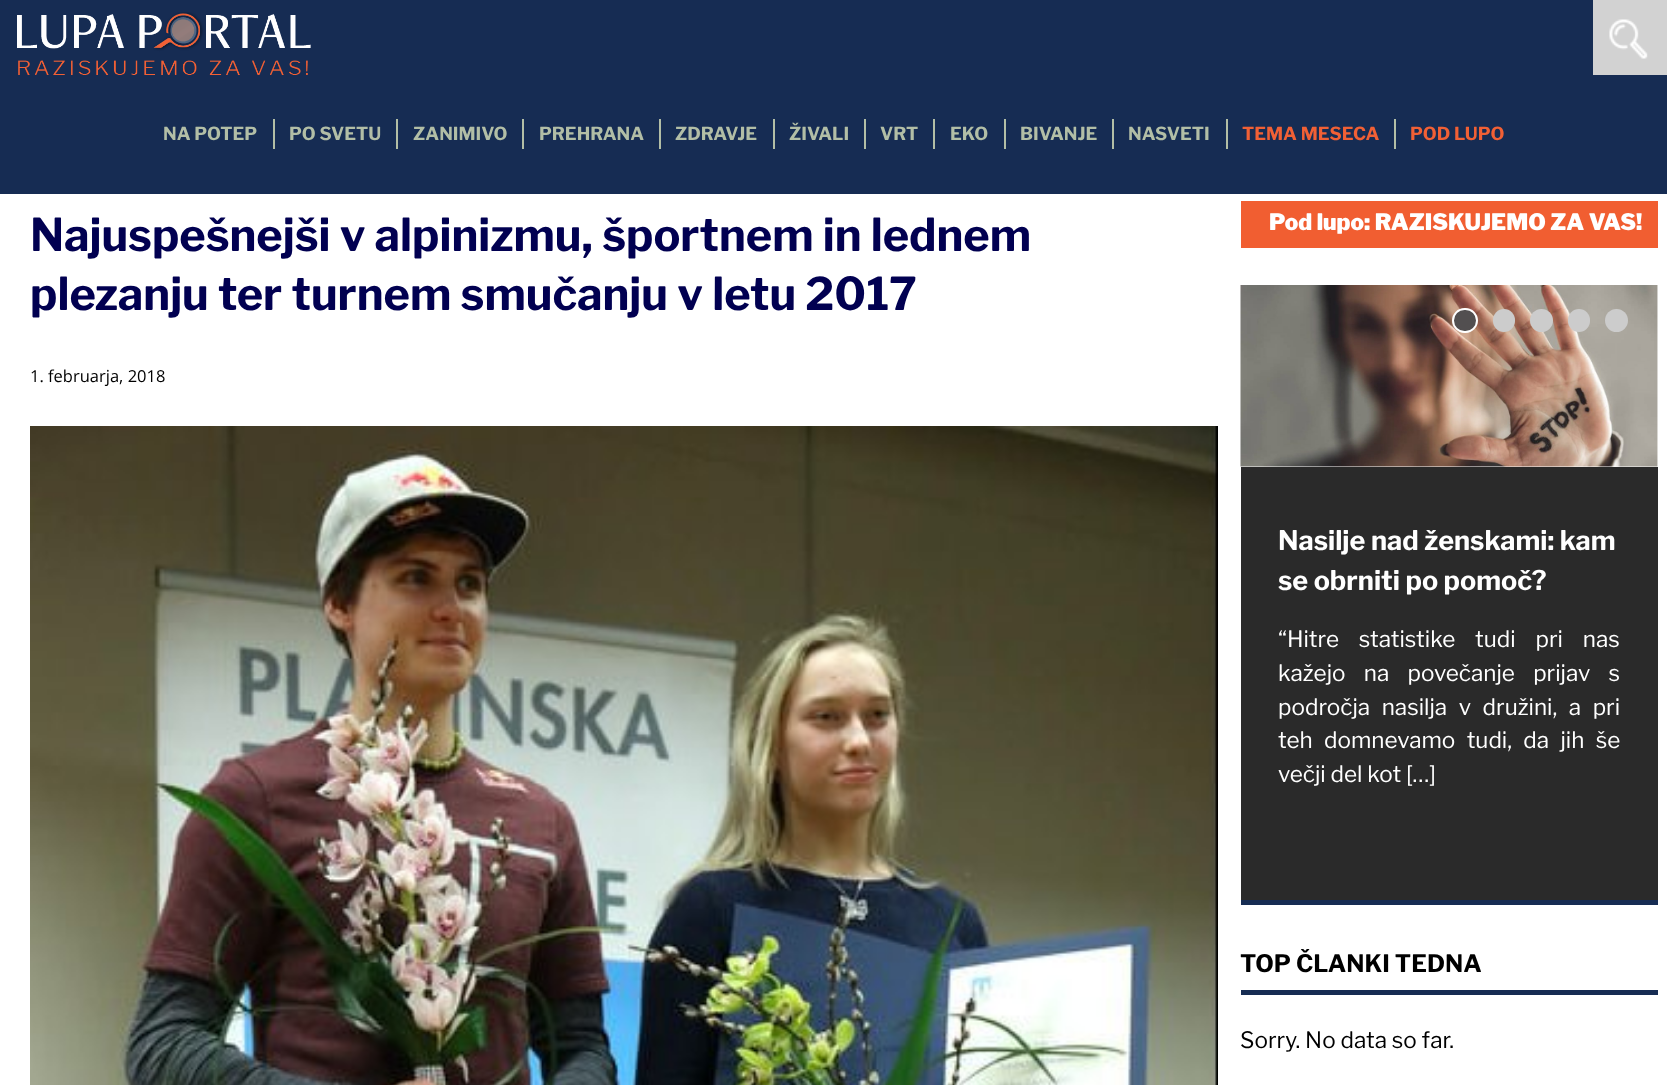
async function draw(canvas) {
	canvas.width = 1667;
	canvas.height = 1085;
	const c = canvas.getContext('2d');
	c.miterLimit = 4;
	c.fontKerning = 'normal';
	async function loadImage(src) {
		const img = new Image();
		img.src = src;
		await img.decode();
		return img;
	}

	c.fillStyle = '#fff';
	c.fillRect(0, 0, 1667, 1085);
	c.fillStyle = '#162c53';
	c.fillRect(0, 0, 1667, 194);
	c.drawImage(await loadImage('img1.png'), 17, 12, 294, 63);
	c.fillStyle = '#d2d2d2';
	c.fillRect(1593, 0, 74, 75);
	c.drawImage(await loadImage('img2.png'), 1609, 19, 39, 40);
	c.font = 'bold 18px Libre Franklin';
	c.fillStyle = '#b2bea6';
	c.fillText('NA POTEP', 163, 140);
	c.fillRect(273, 119, 2, 30);
	c.fillText('PO SVETU', 289, 140);
	c.fillRect(396, 119, 2, 30);
	c.fillText('ZANIMIVO', 413, 140);
	c.fillRect(522, 119, 2, 30);
	c.fillText('PREHRANA', 539, 140);
	c.fillRect(659, 119, 2, 30);
	c.fillText('ZDRAVJE', 675, 140);
	c.fillRect(773, 119, 2, 30);
	c.fillText('ŽIVALI', 789, 140);
	c.fillRect(864, 119, 2, 30);
	c.fillText('VRT', 880, 140);
	c.fillRect(933, 119, 2, 30);
	c.fillText('EKO', 950, 140);
	c.fillRect(1004, 119, 2, 30);
	c.fillText('BIVANJE', 1020, 140);
	c.fillRect(1112, 119, 2, 30);
	c.fillText('NASVETI', 1128, 140);
	c.fillRect(1226, 119, 2, 30);
	c.fillStyle = '#f16035';
	c.fillText('TEMA MESECA', 1242, 140);
	c.fillStyle = '#b2bea6';
	c.fillRect(1394, 119, 2, 30);
	c.fillStyle = '#f16035';
	c.fillText('POD LUPO', 1410, 140);
	c.font = 'bold 45px Libre Franklin';
	c.fillStyle = '#010051';
	c.fillText('Najuspešnejši v alpinizmu, športnem in lednem', 30, 251);
	c.fillText('plezanju ter turnem smučanju v letu 2017', 30, 310);
	c.font = '16.5px Open Sans';
	c.fillStyle = '#000';
	c.fillText('1. februarja, 2018', 30, 382);
	c.drawImage(await loadImage('img3.png'), 30, 426, 1188, 659);
	c.fillStyle = '#f15e31';
	c.fillRect(1241, 201, 417, 47);
	c.font = '900 22.5px Libre Franklin';
	c.fillStyle = '#fff';
	c.fillText('Pod lupo: RAZISKUJEMO ZA VAS!', 1269, 230);
	c.drawImage(await loadImage('img4.png'), 1240, 285, 418, 182);
	c.fillStyle = '#524f50';
	c.beginPath();
	c.roundRect(1453, 309, 24, 23, 11.5);
	c.fill();
	c.strokeStyle = '#fff';
	c.lineWidth = 2;
	c.stroke();
	c.fillStyle = '#ccc';
	c.beginPath();
	c.roundRect(1493, 309, 22, 23, 11);
	c.fill();
	c.beginPath();
	c.arc(1541.5, 320.5, 11.5, 0, 2 * Math.PI);
	c.fill();
	c.beginPath();
	c.roundRect(1568, 309, 22, 23, 11);
	c.fill();
	c.beginPath();
	c.arc(1616.5, 320.5, 11.5, 0, 2 * Math.PI);
	c.fill();
	c.fillStyle = '#2a2a2a';
	c.fillRect(1241, 467, 417, 433);
	c.fillStyle = '#162c53';
	c.fillRect(1241, 900, 417, 5);
	c.font = 'bold 27px Libre Franklin';
	c.fillStyle = '#fff';
	c.fillText('Nasilje nad ženskami: kam', 1278, 550);
	c.fillText('se obrniti po pomoč?', 1278, 590);
	c.wordSpacing = '15px';
	c.font = '22.5px Libre Franklin';
	c.fillText('“Hitre statistike tudi pri nas', 1278, 647);
	c.wordSpacing = '13.5px';
	c.fillText('kažejo na povečanje prijav s', 1278, 681);
	c.wordSpacing = '6.75px';
	c.fillText('področja nasilja v družini, a pri', 1278, 715);
	c.wordSpacing = '6.5px';
	c.fillText('teh domnevamo tudi, da jih še', 1278, 748);
	c.wordSpacing = '0px';
	c.fillText('večji del kot […]', 1278, 782);
	c.fillStyle = '#162c53';
	c.fillRect(1241, 990, 417, 5);
	c.font = 'bold 24px Libre Franklin';
	c.fillStyle = '#000';
	c.fillText('TOP ČLANKI TEDNA', 1240, 972);
	c.font = '22.5px Libre Franklin';
	c.fillText('Sorry. No data so far.', 1240, 1048);
}

draw(document.querySelector('canvas'));
